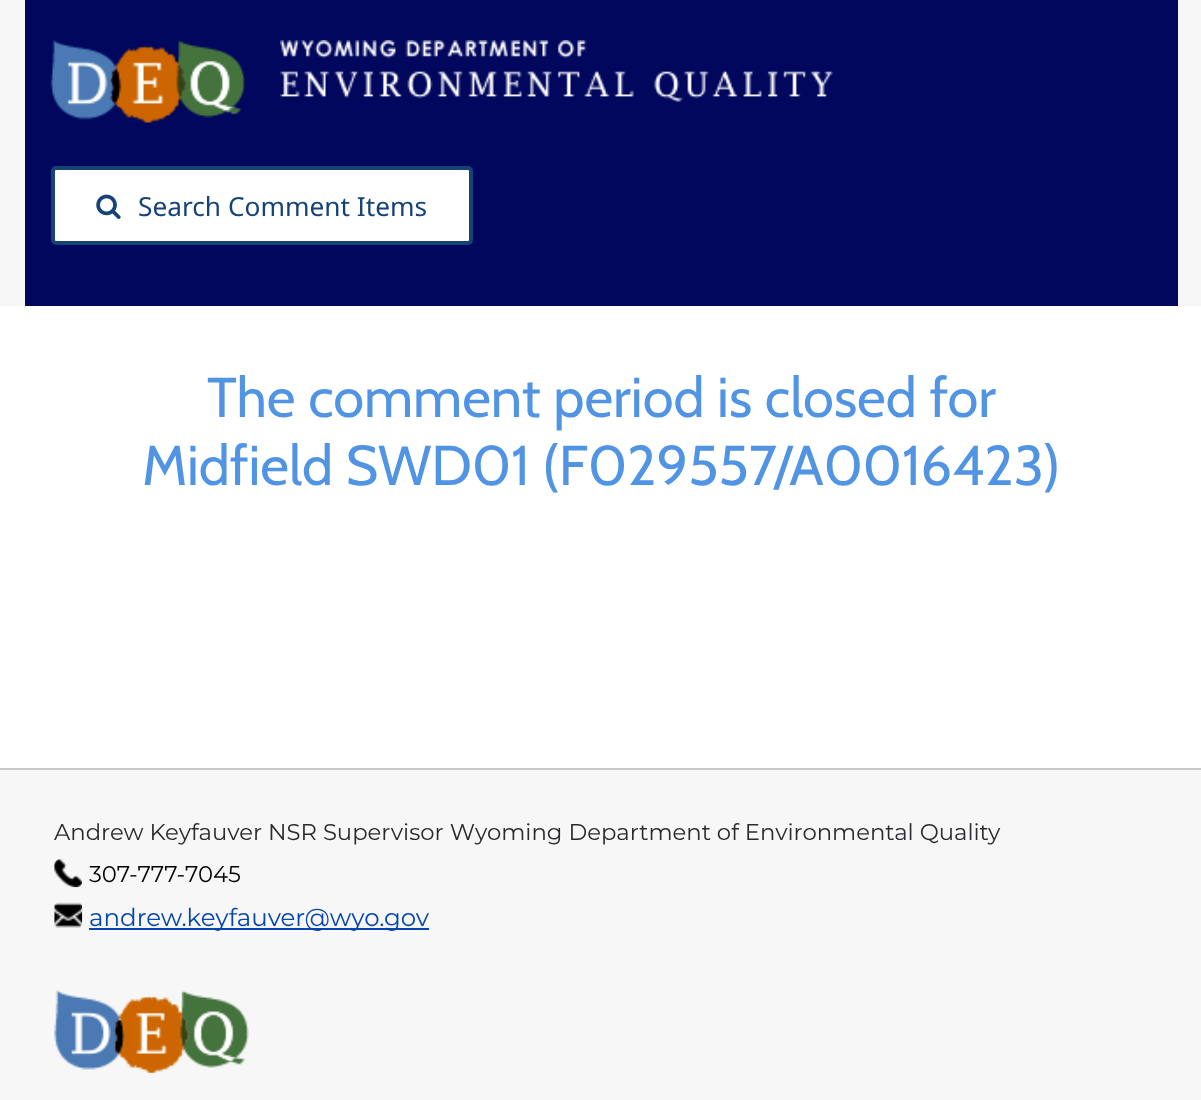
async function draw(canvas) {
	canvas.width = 1201;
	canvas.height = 1100;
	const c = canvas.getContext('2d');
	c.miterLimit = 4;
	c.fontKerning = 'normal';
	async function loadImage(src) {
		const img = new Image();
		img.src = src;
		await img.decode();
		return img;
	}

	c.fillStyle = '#f7f7f7';
	c.fillRect(0, 0, 1201, 1100);
	c.fillStyle = '#00075c';
	c.fillRect(25, 0, 1153, 306);
	c.drawImage(await loadImage('img1.png'), 50, 40, 195, 83);
	c.drawImage(await loadImage('img2.png'), 280, 40, 553, 62);
	c.fillStyle = '#fff';
	c.beginPath();
	c.roundRect(53, 168, 418, 75, 3);
	c.fill();
	c.strokeStyle = '#154377';
	c.lineWidth = 4;
	c.stroke();
	c.drawImage(await loadImage('img3.png'), 96, 194, 25, 25);
	c.font = '26.25px Noto Sans';
	c.fillStyle = '#154377';
	c.fillText('Search Comment Items', 138, 216);
	c.fillStyle = '#fff';
	c.fillRect(0, 306, 1201, 462);
	c.font = '56px Cabin';
	c.fillStyle = '#5094e3';
	c.fillText('The comment period is closed for', 207, 417);
	c.fillText('Midfield SWD01 (F029557/A0016423)', 142, 485);
	c.fillStyle = '#c9c9c9';
	c.fillRect(0, 768, 1201, 2);
	c.font = '22.75px Montserrat';
	c.fillStyle = '#2b2b2f';
	c.fillText('Andrew Keyfauver NSR Supervisor Wyoming Department of Environmental Quality', 54, 840);
	c.drawImage(await loadImage('img4.png'), 54, 859, 29, 29);
	c.fillStyle = '#000';
	c.fillText('307-777-7045', 89, 882);
	c.drawImage(await loadImage('img5.png'), 54, 902, 29, 26);
	c.fillStyle = '#0645ad';
	c.fillRect(89, 928, 340, 2);
	c.font = '24.5px Montserrat';
	c.fillText('andrew.keyfauver@wyo.gov', 89, 926);
	c.drawImage(await loadImage('img6.png'), 54, 990, 195, 83);
}

draw(document.querySelector('canvas'));
